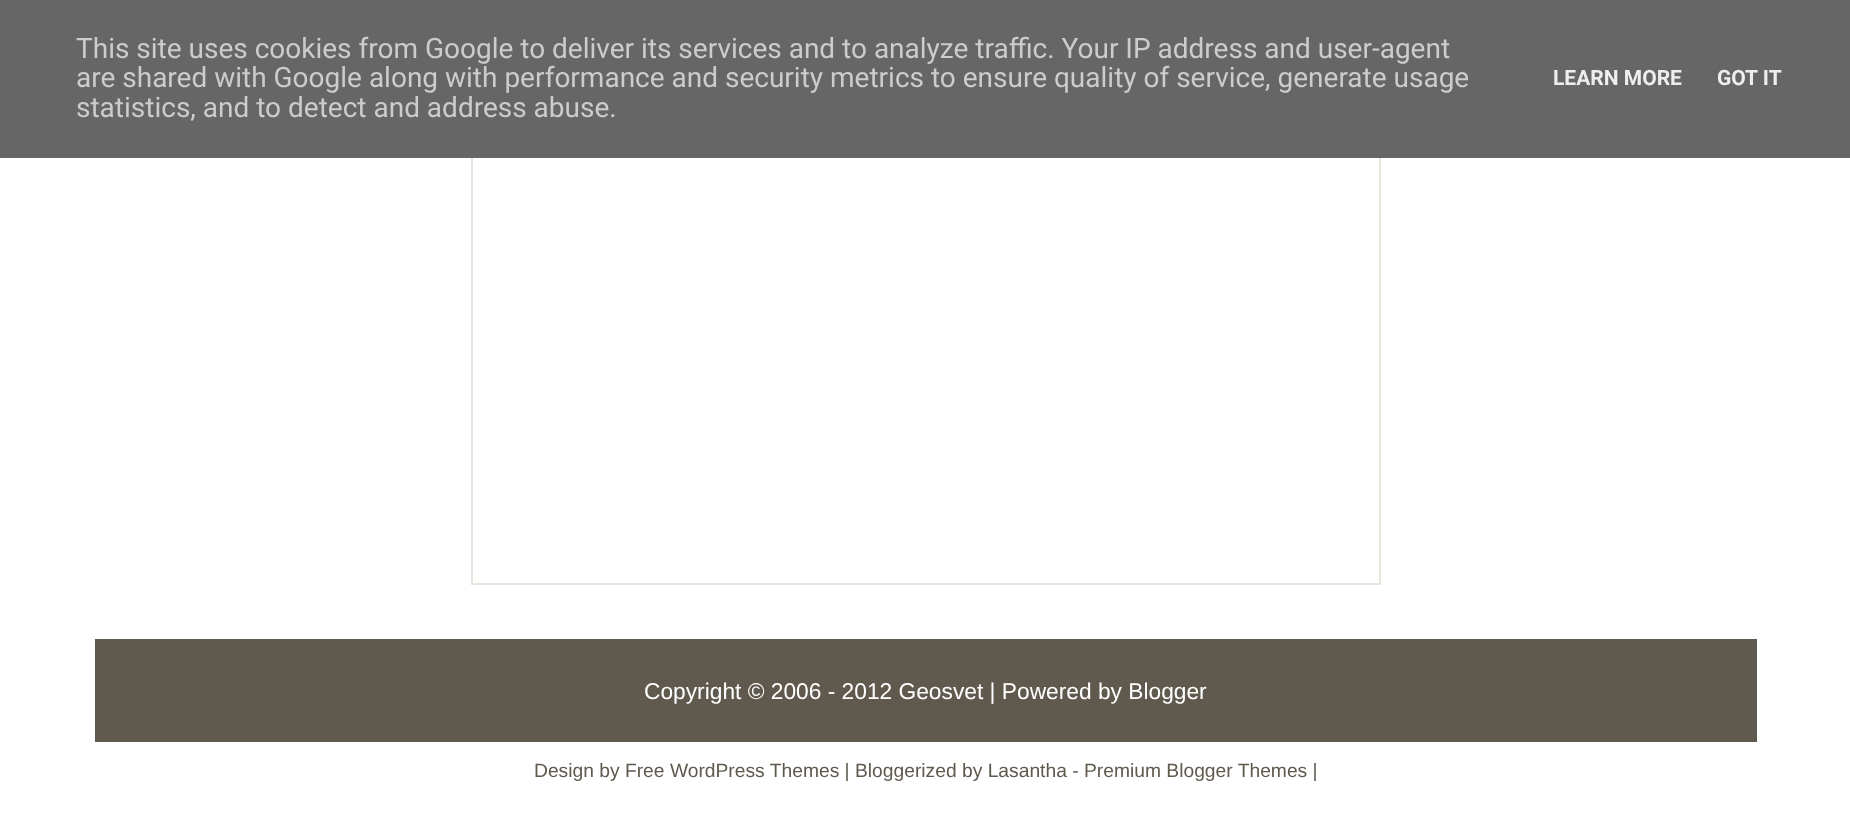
async function draw(canvas) {
	canvas.width = 1850;
	canvas.height = 823;
	const c = canvas.getContext('2d');
	c.miterLimit = 4;
	c.fontKerning = 'normal';

	c.fillStyle = '#fff';
	c.fillRect(0, 0, 1850, 823);
	c.strokeStyle = '#e8e5df';
	c.lineWidth = 2;
	c.strokeRect(472, -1, 908, 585);
	c.fillStyle = '#666';
	c.fillRect(0, 0, 1850, 158);
	c.font = '28px Roboto';
	c.fillStyle = '#ccc';
	for (const [text, x, y] of [
		['This site uses cookies from Google to deliver its services and to analyze traffic. Your IP address and user-agent', 76, 58],
		['are shared with Google along with performance and security metrics to ensure quality of service, generate usage', 76, 87],
		['statistics, and to detect and address abuse.', 76, 117],
	]) {
		c.fillText(text, x, y);
	}
	c.font = 'bold 21px Roboto';
	c.fillStyle = '#eee';
	c.fillText('LEARN MORE', 1553, 85);
	c.fillText('GOT IT', 1717, 85);
	c.fillStyle = '#5f594e';
	c.fillRect(95, 639, 1662, 103);
	c.font = '22.75px Liberation Sans';
	c.fillStyle = '#fff';
	c.fillText('Copyright © 2006 - 2012 Geosvet | Powered by Blogger', 644, 699);
	c.font = '19.25px Liberation Sans';
	c.fillStyle = '#5f594e';
	c.fillText('Design by Free WordPress Themes | Bloggerized by Lasantha - Premium Blogger Themes |', 534, 777);
}

draw(document.querySelector('canvas'));
